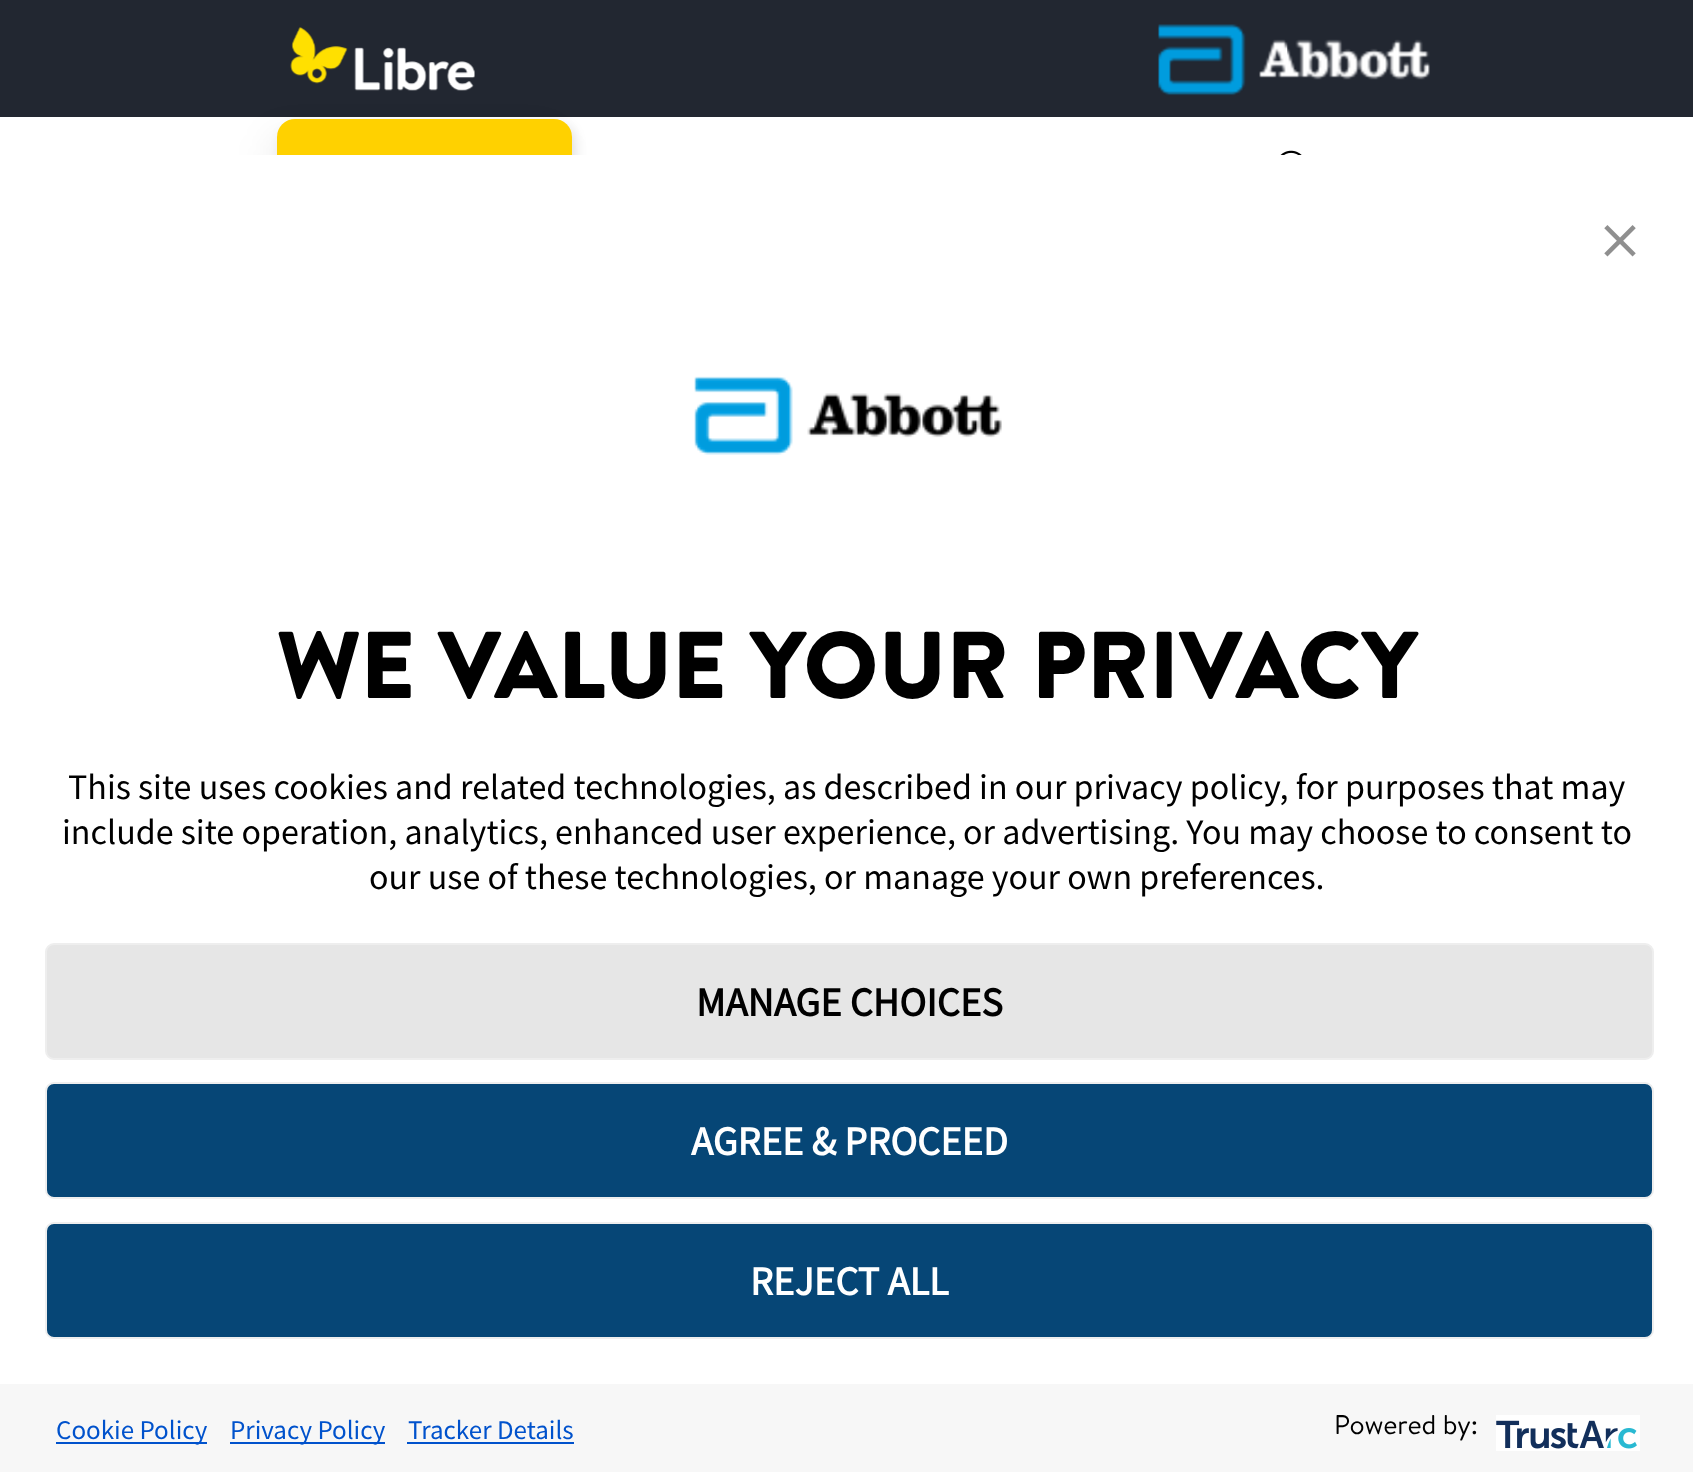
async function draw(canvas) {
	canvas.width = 1693;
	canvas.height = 1472;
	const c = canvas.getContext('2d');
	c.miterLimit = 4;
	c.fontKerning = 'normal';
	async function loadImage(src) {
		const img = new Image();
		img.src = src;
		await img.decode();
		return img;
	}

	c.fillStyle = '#222731';
	c.fillRect(0, 0, 1693, 1472);
	c.drawImage(await loadImage('img1.png'), 290, 27, 185, 64);
	c.drawImage(await loadImage('img2.png'), 1158, 24, 272, 72);
	c.fillStyle = '#fff';
	c.fillRect(0, 117, 1693, 38);
	c.fillStyle = '#0000001a';
	c.filter = 'blur(5.5px)';
	c.beginPath();
	c.roundRect(281, 124, 295, 99, 18);
	c.fill();
	c.filter = 'none';
	c.fillStyle = '#0000000d';
	c.filter = 'blur(16px)';
	c.beginPath();
	c.roundRect(266, 131, 294, 99, 18);
	c.fill();
	c.filter = 'none';
	c.fillStyle = '#ffd100';
	c.beginPath();
	c.roundRect(277, 119, 295, 99, 18);
	c.fill();
	c.drawImage(await loadImage('img3.png'), 1280, 150, 22, 5);
	c.fillStyle = '#fff';
	c.fillRect(0, 155, 1693, 1229);
	c.drawImage(await loadImage('img4.png'), 694, 376, 308, 79);
	c.font = '94.5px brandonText';
	c.fillStyle = '#000';
	c.fillText('WE VALUE YOUR PRIVACY', 277, 698);
	c.drawImage(await loadImage('img5.png'), 1604, 225, 32, 32);
	c.font = '36px Source Sans Pro';
	for (const [text, x, y] of [
		['This site uses cookies and related technologies, as described in our privacy policy, for purposes that may', 68, 799],
		['include site operation, analytics, enhanced user experience, or advertising. You may choose to consent to', 62, 844],
		['our use of these technologies, or manage your own preferences.', 369, 889],
	]) {
		c.fillText(text, x, y);
	}
	c.fillStyle = '#e6e6e6';
	c.beginPath();
	c.roundRect(46, 944, 1607, 115, 8);
	c.fill();
	c.strokeStyle = '#eee';
	c.lineWidth = 2;
	c.stroke();
	c.font = 'bold 40.5px Source Sans Pro';
	c.fillStyle = '#000';
	c.fillText('MANAGE CHOICES', 696, 1016);
	c.fillStyle = '#064676';
	c.beginPath();
	c.roundRect(46, 1083, 1607, 115, 8);
	c.fill();
	c.stroke();
	c.fillStyle = '#fff';
	c.fillText('AGREE & PROCEED', 691, 1155);
	c.fillStyle = '#064676';
	c.beginPath();
	c.roundRect(46, 1223, 1607, 115, 8);
	c.fill();
	c.stroke();
	c.fillStyle = '#fff';
	c.fillText('REJECT ALL', 750, 1295);
	c.fillStyle = '#f7f7f7';
	c.fillRect(0, 1384, 1693, 88);
	c.fillStyle = '#0052cc';
	c.fillRect(56, 1442, 151, 2);
	c.font = '27px Source Sans Pro';
	c.fillText('Cookie Policy', 56, 1439);
	c.fillRect(230, 1442, 155, 2);
	c.fillText('Privacy Policy', 230, 1439);
	c.fillText('Tracker Details', 408, 1439);
	c.fillRect(407, 1442, 167, 2);
	c.font = '27px "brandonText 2"';
	c.fillStyle = '#000';
	c.fillText('Powered by:', 1334, 1434);
	c.drawImage(await loadImage('img6.png'), 1496, 1415, 144, 36);
}

draw(document.querySelector('canvas'));
